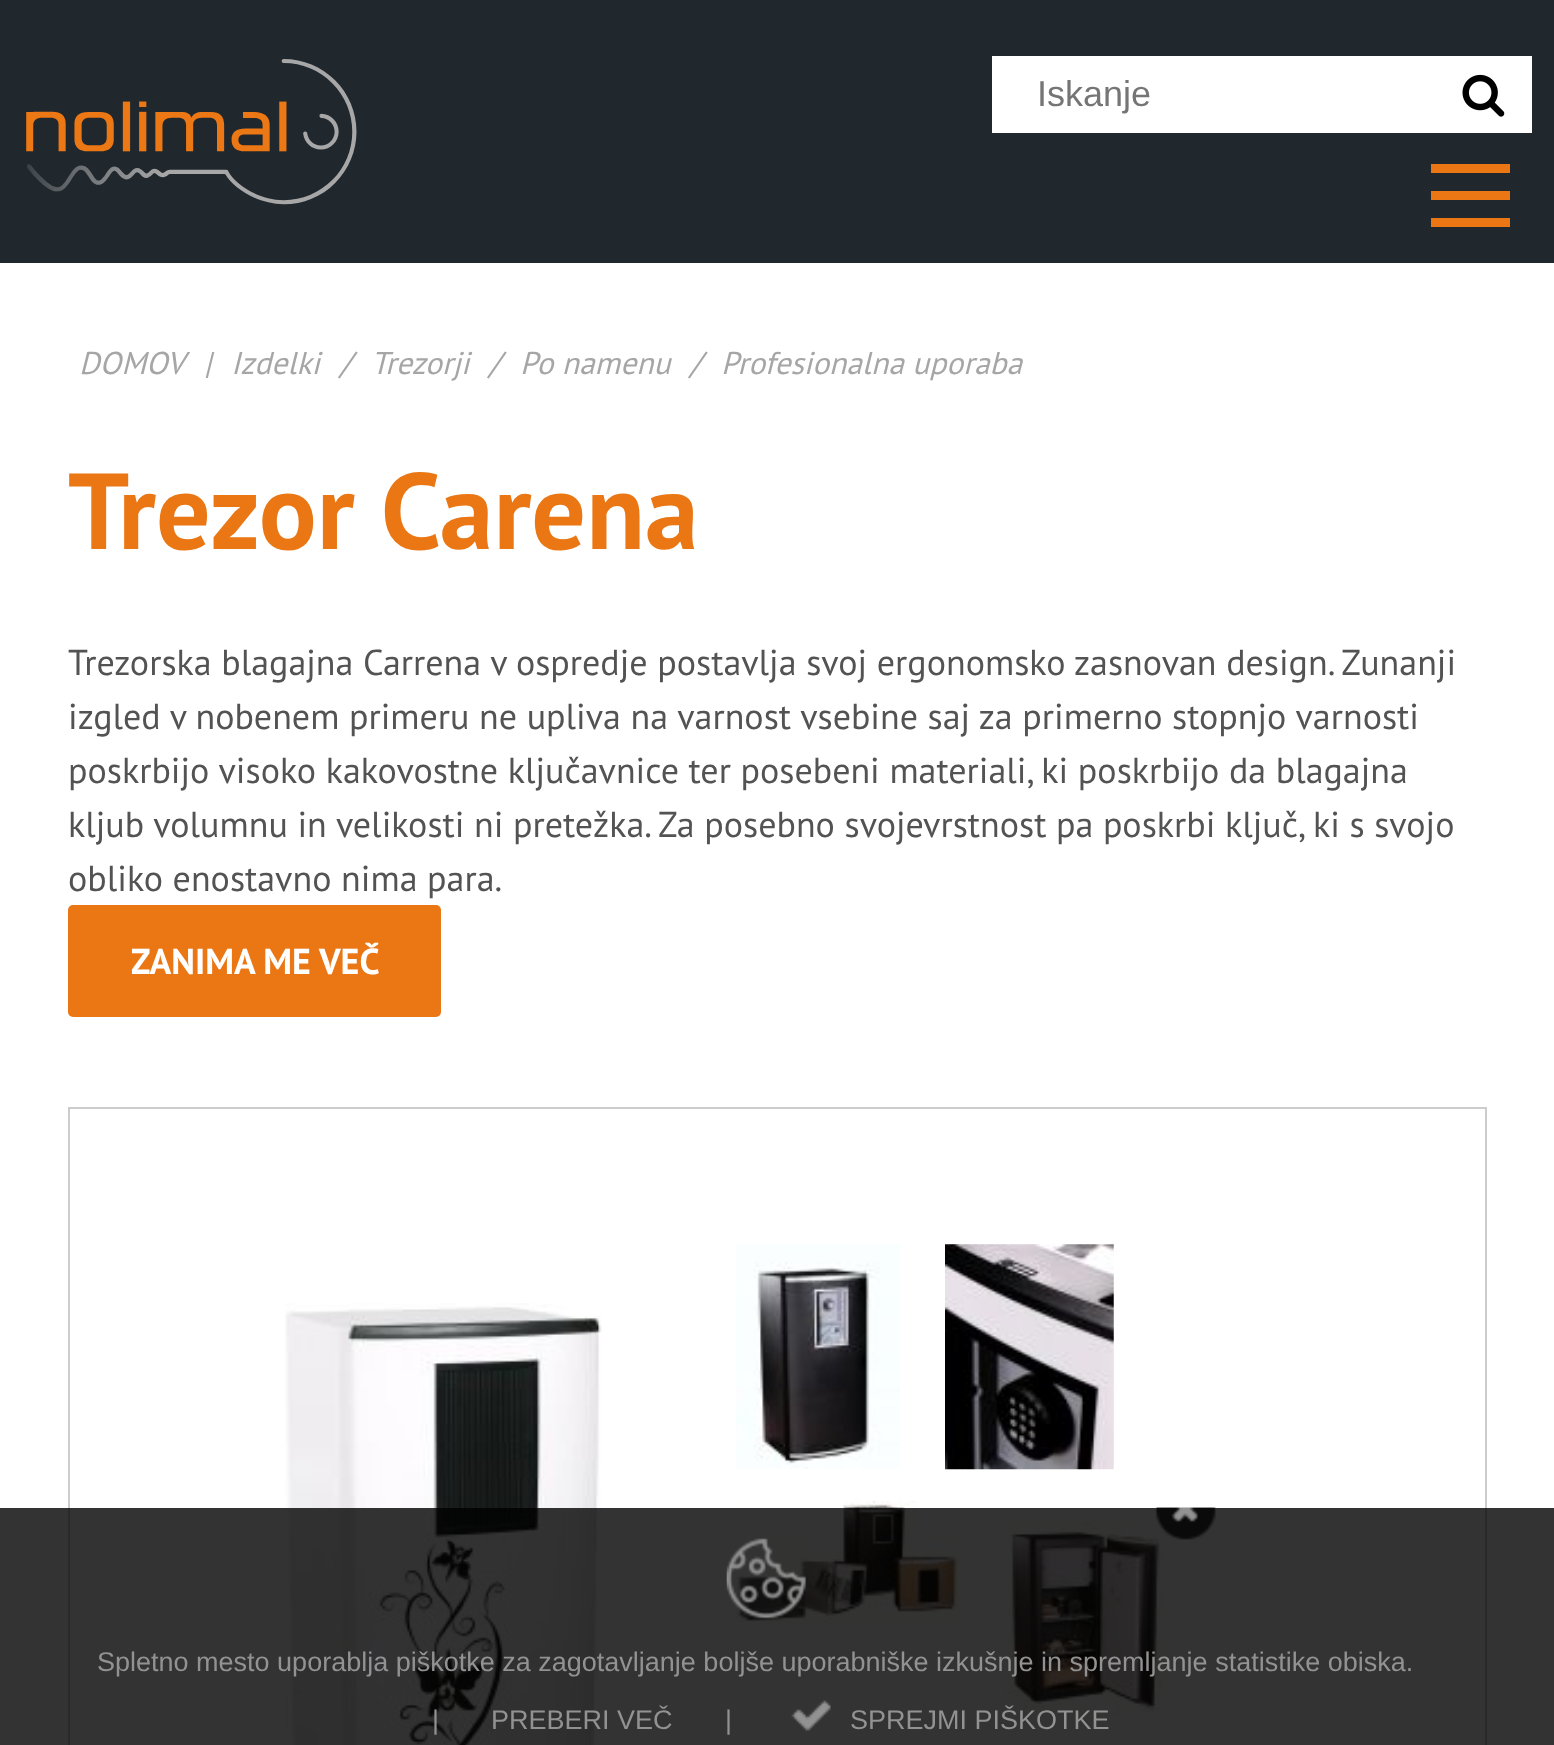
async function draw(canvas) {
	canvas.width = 1554;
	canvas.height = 1745;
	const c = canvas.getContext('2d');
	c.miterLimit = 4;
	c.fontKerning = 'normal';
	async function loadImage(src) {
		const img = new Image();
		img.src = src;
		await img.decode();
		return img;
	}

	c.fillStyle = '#20282e';
	c.fillRect(0, 0, 1554, 1745);
	c.drawImage(await loadImage('img1.png'), 26, 59, 331, 146);
	c.fillStyle = '#fff';
	c.fillRect(992, 56, 540, 77);
	c.font = '36px Liberation Sans';
	c.fillStyle = '#757575';
	c.fillText('Iskanje', 1037, 106);
	c.drawImage(await loadImage('img2.png'), 1462, 74, 43, 43);
	for (const [x, y, w, h, color] of [
		[1431, 164, 79, 9, '#ea7714'],
		[1431, 191, 79, 9, '#ea7714'],
		[1431, 218, 79, 9, '#ea7714'],
		[0, 263, 1554, 1482, '#fff'],
	]) {
		c.fillStyle = color;
		c.fillRect(x, y, w, h);
	}
	c.font = 'italic 31.5px PT Sans';
	c.fillStyle = '#a6a6a7';
	for (const [text, x, y] of [
		['DOMOV', 79, 374],
		['|', 204, 374],
		['Izdelki', 231, 374],
		['/', 340, 374],
		['Trezorji', 371, 374],
		['/', 489, 374],
		['Po namenu', 520, 374],
		['/', 690, 374],
		['Profesionalna uporaba', 721, 374],
	]) {
		c.fillText(text, x, y);
	}
	c.font = 'bold 108px PT Sans';
	c.fillStyle = '#ea7714';
	c.fillText('Trezor Carena', 68, 549);
	c.font = '36px PT Sans';
	c.fillStyle = '#535353';
	for (const [text, x, y] of [
		['Trezorska blagajna Carrena v ospredje postavlja svoj ergonomsko zasnovan design. Zunanji', 68, 675],
		['izgled v nobenem primeru ne upliva na varnost vsebine saj za primerno stopnjo varnosti', 68, 729],
		['poskrbijo visoko kakovostne ključavnice ter posebeni materiali, ki poskrbijo da blagajna', 68, 783],
		['kljub volumnu in velikosti ni pretežka. Za posebno svojevrstnost pa poskrbi ključ, ki s svojo', 68, 837],
		['obliko enostavno nima para.', 68, 891],
	]) {
		c.fillText(text, x, y);
	}
	c.fillStyle = '#ea7714';
	c.beginPath();
	c.roundRect(68, 905, 373, 112, 5);
	c.fill();
	c.font = 'bold 36px PT Sans';
	c.fillStyle = '#fff';
	c.fillText('ZANIMA ME VEČ', 131, 974);
	c.strokeStyle = '#ccc';
	c.lineWidth = 2;
	c.strokeRect(69, 1108, 1417, 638);
	c.drawImage(await loadImage('img3.png'), 285, 1303, 317, 442);
	c.drawImage(await loadImage('img4.png'), 736, 1244, 164, 225);
	c.drawImage(await loadImage('img5.png'), 945, 1244, 169, 226);
	c.drawImage(await loadImage('img6.png'), 736, 1500, 225, 125);
	c.drawImage(await loadImage('img7.png'), 1006, 1519, 163, 199);
	c.fillStyle = '#000000cc';
	c.fillRect(0, 1508, 1554, 237);
	c.drawImage(await loadImage('img8.png'), 1155, 1507, 61, 33);
	c.drawImage(await loadImage('img9.png'), 726, 1538, 80, 81);
	c.font = '27px Liberation Sans';
	c.fillStyle = '#929292';
	for (const [text, x, y] of [
		['Spletno mesto uporablja piškotke za zagotavljanje boljše uporabniške izkušnje in spremljanje statistike obiska.', 97, 1671],
		['|', 432, 1729],
		['PREBERI VEČ', 491, 1729],
		['|', 725, 1729],
	]) {
		c.fillText(text, x, y);
	}
	c.drawImage(await loadImage('img10.png'), 791, 1700, 40, 31);
	c.fillText('SPREJMI PIŠKOTKE', 850, 1729);
}

draw(document.querySelector('canvas'));
